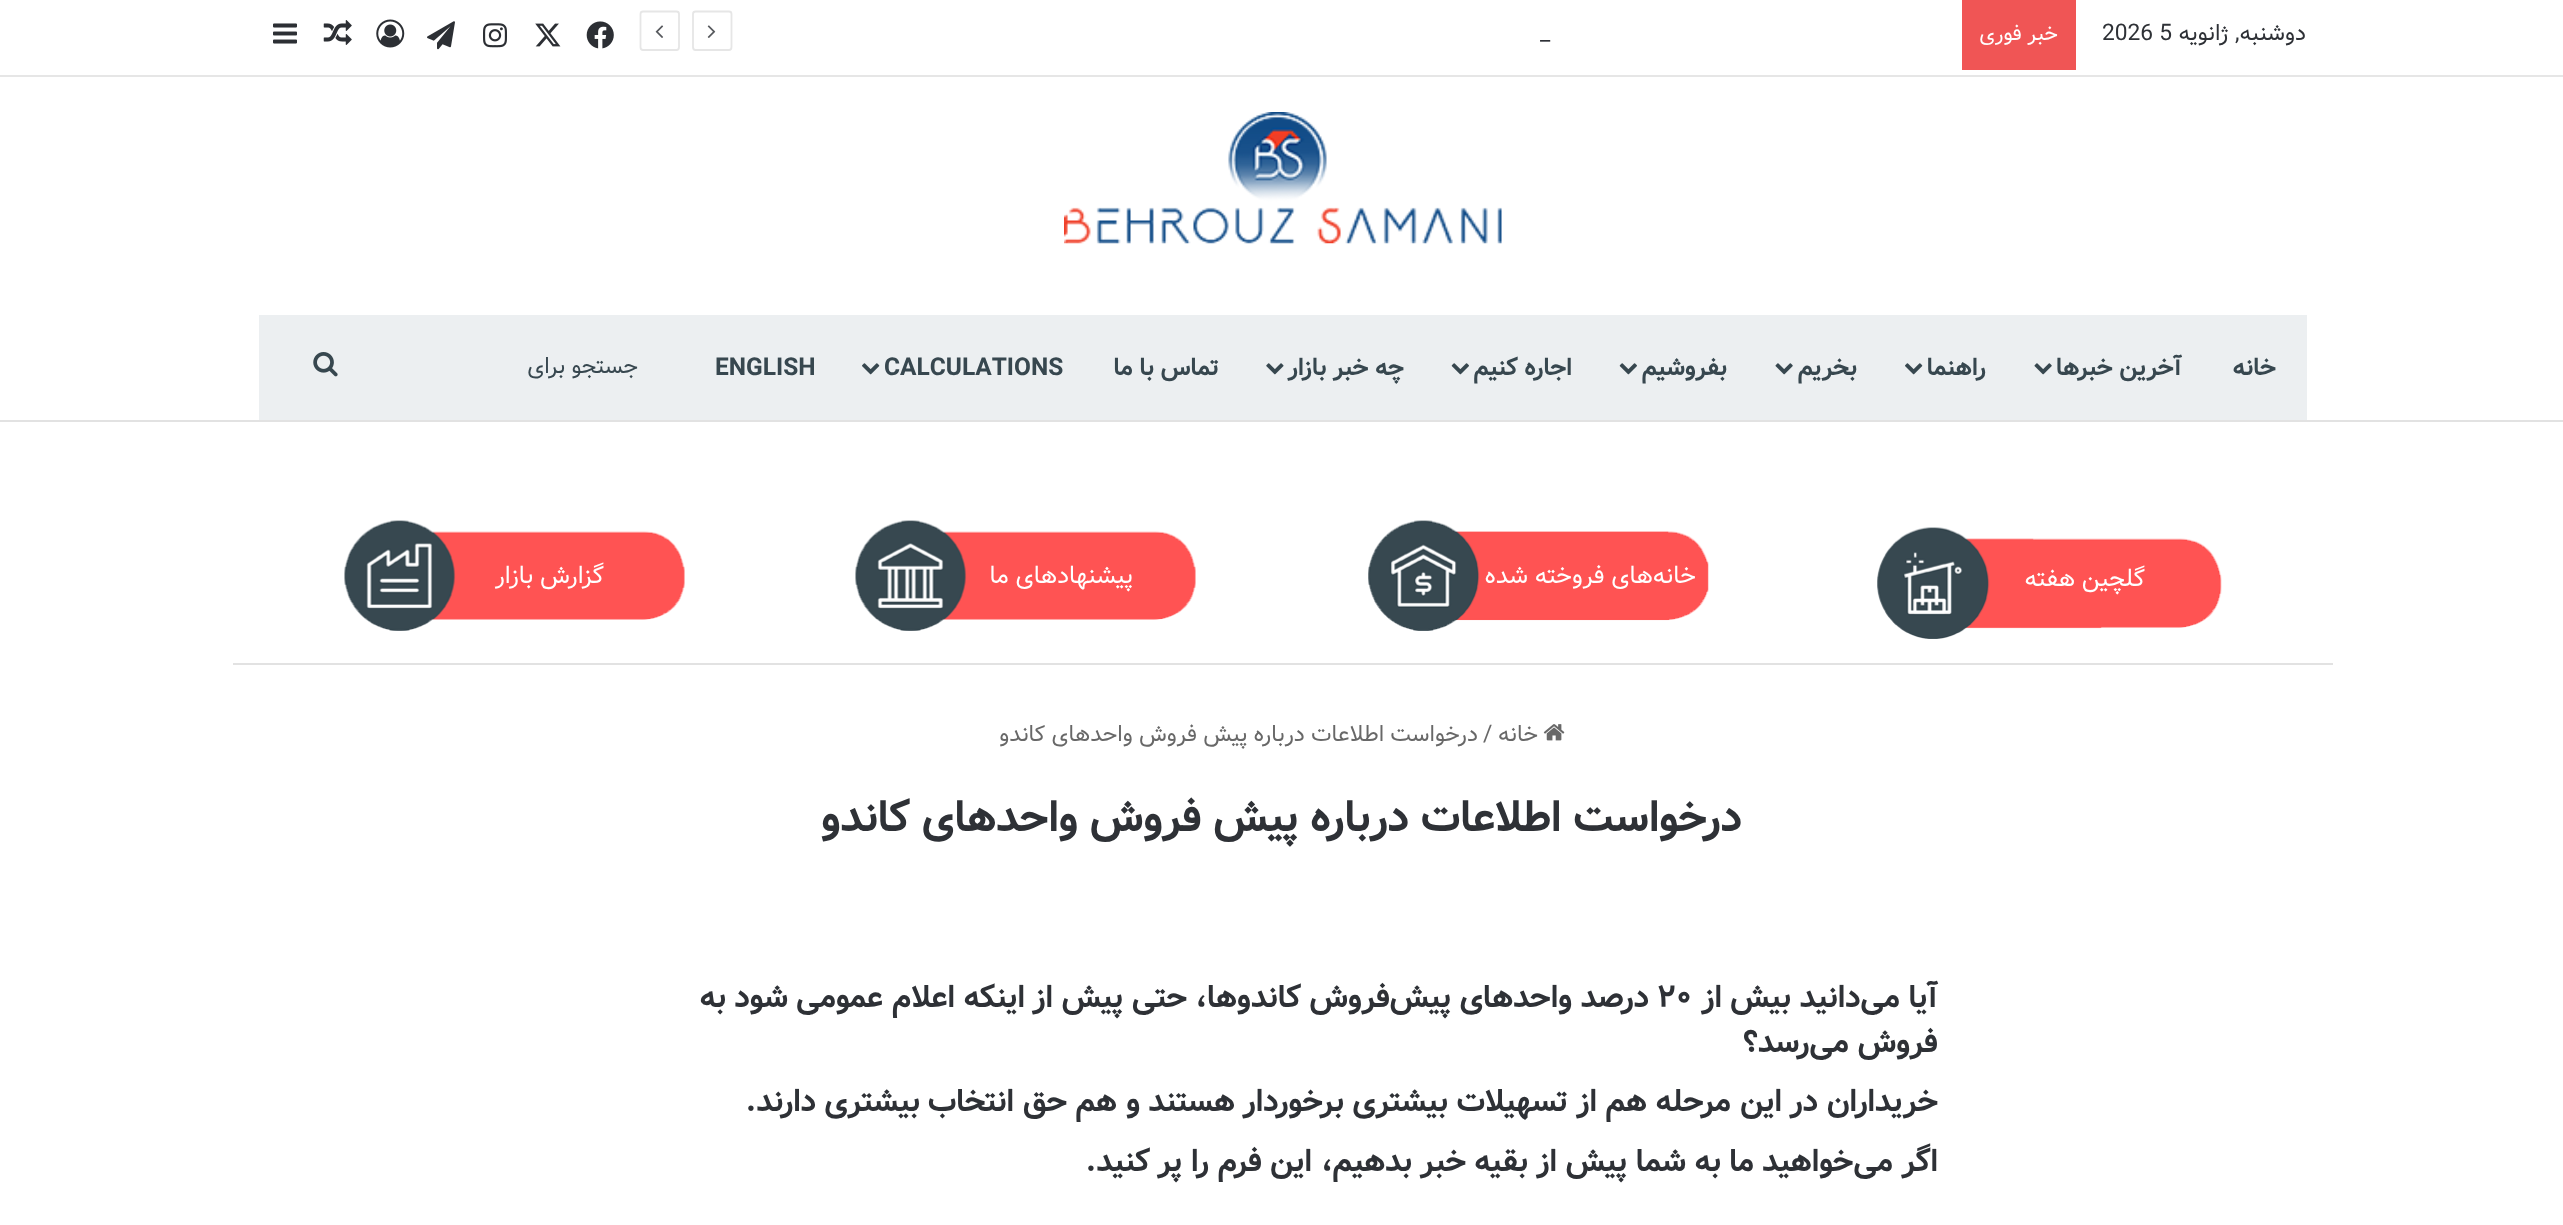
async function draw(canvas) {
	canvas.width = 2563;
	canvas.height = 1225;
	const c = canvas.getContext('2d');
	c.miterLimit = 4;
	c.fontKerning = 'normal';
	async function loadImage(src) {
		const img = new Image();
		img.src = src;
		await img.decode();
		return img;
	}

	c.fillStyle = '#fff';
	c.fillRect(0, 0, 2563, 1225);
	c.fillStyle = '#e2e2e2';
	c.fillRect(0, 420, 2563, 2);
	c.fillStyle = '#e6e6e6';
	c.fillRect(0, 75, 2563, 2);
	c.direction = 'rtl';
	c.font = '22.75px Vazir';
	c.fillStyle = '#2e3136';
	c.fillText('دوشنبه, ژانویه', 2306, 40);
	c.direction = 'ltr';
	c.fillText('2026 5', 2102, 40);
	c.fillStyle = '#f05555';
	c.fillRect(1962, 0, 114, 70);
	c.direction = 'rtl';
	c.font = '21px Vazir';
	c.fillStyle = '#fff';
	c.fillText('خبر فوری', 2058, 40);
	c.direction = 'ltr';
	c.font = '22.75px Vazir';
	c.fillStyle = '#2e3136';
	c.fillText('_', 1540, 40);
	c.beginPath();
	c.moveTo(729, 50);
	c.lineTo(695.5, 50);
	c.bezierCurveTo(694, 50, 693, 48.5, 693, 47);
	c.lineTo(693, 14);
	c.bezierCurveTo(693, 12.5, 694, 11.5, 695.5, 11.5);
	c.lineTo(729, 11.5);
	c.bezierCurveTo(730.5, 11.5, 731.5, 12.5, 731.5, 14);
	c.lineTo(731.5, 47);
	c.bezierCurveTo(731.5, 48.5, 730.5, 50, 729, 50);
	c.closePath();
	c.strokeStyle = '#e6e6e6';
	c.lineWidth = 1.8;
	c.stroke();
	c.drawImage(await loadImage('img1.png'), 707, 25, 9, 13);
	c.beginPath();
	c.moveTo(676.5, 50);
	c.lineTo(643, 50);
	c.bezierCurveTo(641.5, 50, 640.5, 48.5, 640.5, 47);
	c.lineTo(640.5, 14);
	c.bezierCurveTo(640.5, 12.5, 641.5, 11.5, 643, 11.5);
	c.lineTo(676.5, 11.5);
	c.bezierCurveTo(678, 11.5, 679, 12.5, 679, 14);
	c.lineTo(679, 47);
	c.bezierCurveTo(679, 48.5, 678, 50, 676.5, 50);
	c.closePath();
	c.stroke();
	c.drawImage(await loadImage('img2.png'), 655, 25, 9, 13);
	c.drawImage(await loadImage('img3.png'), 586, 21, 28, 28);
	c.drawImage(await loadImage('img4.png'), 535, 23, 26, 24);
	c.drawImage(await loadImage('img5.png'), 483, 23, 24, 25);
	c.drawImage(await loadImage('img6.png'), 427, 21, 28, 29);
	c.drawImage(await loadImage('img7.png'), 376, 19, 29, 29);
	c.drawImage(await loadImage('img8.png'), 323, 20, 29, 25);
	c.drawImage(await loadImage('img9.png'), 273, 23, 24, 21);
	c.drawImage(await loadImage('img10.png'), 1064, 112, 438, 132);
	c.fillStyle = '#eceff1';
	c.fillRect(259, 315, 2048, 105);
	c.direction = 'rtl';
	c.font = 'bold 24.5px Vazir';
	c.fillStyle = '#37474f';
	c.fillText('خانه', 2276, 375);
	c.fillText('آخرین خبرها', 2182, 375);
	c.drawImage(await loadImage('img11.png'), 2034, 363, 18, 12);
	c.fillText('راهنما', 1986, 375);
	c.drawImage(await loadImage('img12.png'), 1905, 363, 18, 12);
	c.fillText('بخریم', 1857, 375);
	c.drawImage(await loadImage('img11.png'), 1775, 363, 18, 12);
	c.fillText('بفروشیم', 1727, 375);
	c.drawImage(await loadImage('img13.png'), 1619, 363, 18, 12);
	c.fillText('اجاره کنیم', 1572, 375);
	c.drawImage(await loadImage('img13.png'), 1451, 363, 18, 12);
	c.fillText('چه خبر بازار', 1404, 375);
	c.drawImage(await loadImage('img14.png'), 1266, 363, 18, 12);
	c.fillText('تماس با ما', 1219, 375);
	c.direction = 'ltr';
	c.fillText('CALCULATIONS', 884, 375);
	c.drawImage(await loadImage('img12.png'), 862, 363, 18, 12);
	c.fillText('ENGLISH', 715, 375);
	c.direction = 'rtl';
	c.font = '22.75px Vazir';
	c.fillText('جستجو برای', 638, 373);
	c.drawImage(await loadImage('img15.png'), 313, 352, 25, 25);
	c.fillStyle = '#e2e2e2';
	c.fillRect(233, 663, 2100, 2);
	c.drawImage(await loadImage('img16.png'), 1877, 527, 345, 112);
	c.font = '24.5px Vazir';
	c.fillStyle = '#fff';
	c.fillText('گلچین هفته', 2145, 586);
	c.drawImage(await loadImage('img17.png'), 1368, 520, 341, 111);
	c.fillText('خانه‌های فروخته شده', 1696, 583);
	c.drawImage(await loadImage('img18.png'), 855, 520, 341, 111);
	c.fillText('پیشنهادهای ما', 1133, 583);
	c.drawImage(await loadImage('img19.png'), 344, 520, 341, 111);
	c.fillText('گزارش بازار', 604, 583);
	c.drawImage(await loadImage('img20.png'), 1543, 724, 22, 17);
	c.font = '22.75px Vazir';
	c.fillStyle = '#686868';
	c.fillText('خانه', 1538, 741);
	c.direction = 'ltr';
	c.fillText('/', 1483, 741);
	c.direction = 'rtl';
	c.fillText('درخواست اطلاعات درباره پیش فروش واحدهای کاندو', 1478, 741);
	c.font = 'bold 43.75px Vazir';
	c.fillStyle = '#2e3136';
	c.fillText('درخواست اطلاعات درباره پیش فروش واحدهای کاندو', 1742, 831);
	c.font = 'bold 31.5px Vazir';
	for (const [text, x, y] of [
		['آیا', 1938, 1007],
		['می‌دانید', 1900, 1007],
		['بیش', 1791, 1007],
		['از', 1722, 1007],
	]) {
		c.fillText(text, x, y);
	}
	c.direction = 'ltr';
	c.fillText('۲۰', 1657, 1007);
	c.direction = 'rtl';
	for (const [text, x, y] of [
		['درصد', 1649, 1007],
		['واحدهای', 1572, 1007],
		['پیش‌فروش', 1451, 1007],
		['کاندوها،', 1301, 1007],
		['حتی', 1187, 1007],
		['پیش', 1123, 1007],
		['از', 1053, 1007],
		['اینکه', 1025, 1007],
		['اعلام', 955, 1007],
		['عمومی', 883, 1007],
		['شود', 788, 1007],
		['به', 726, 1007],
		['فروش', 1938, 1052],
		['می‌رسد؟', 1849, 1052],
		['خریداران', 1938, 1111],
		['در', 1818, 1111],
		['این', 1782, 1111],
		['مرحله', 1731, 1111],
		['هم', 1647, 1111],
		['از', 1597, 1111],
		['تسهیلات', 1568, 1111],
		['بیشتری', 1448, 1111],
		['برخوردار', 1344, 1111],
		['هستند', 1235, 1111],
		['و', 1140, 1111],
		['هم', 1117, 1111],
		['حق', 1067, 1111],
		['انتخاب', 1014, 1111],
		['بیشتری', 920, 1111],
		['دارند', 816, 1111],
	]) {
		c.fillText(text, x, y);
	}
	c.direction = 'ltr';
	c.fillText('.', 746, 1111);
	c.direction = 'rtl';
	for (const [text, x, y] of [
		['اگر', 1938, 1171],
		['می‌خواهید', 1893, 1171],
		['ما', 1754, 1171],
		['به', 1721, 1171],
		['شما', 1686, 1171],
		['پیش', 1627, 1171],
		['از', 1557, 1171],
		['بقیه', 1528, 1171],
		['خبر', 1466, 1171],
		['بدهیم،', 1412, 1171],
		['این', 1312, 1171],
		['فرم', 1262, 1171],
		['را', 1209, 1171],
		['پر', 1182, 1171],
		['کنید', 1150, 1171],
	]) {
		c.fillText(text, x, y);
	}
	c.direction = 'ltr';
	c.fillText('.', 1086, 1171);
}

draw(document.querySelector('canvas'));
